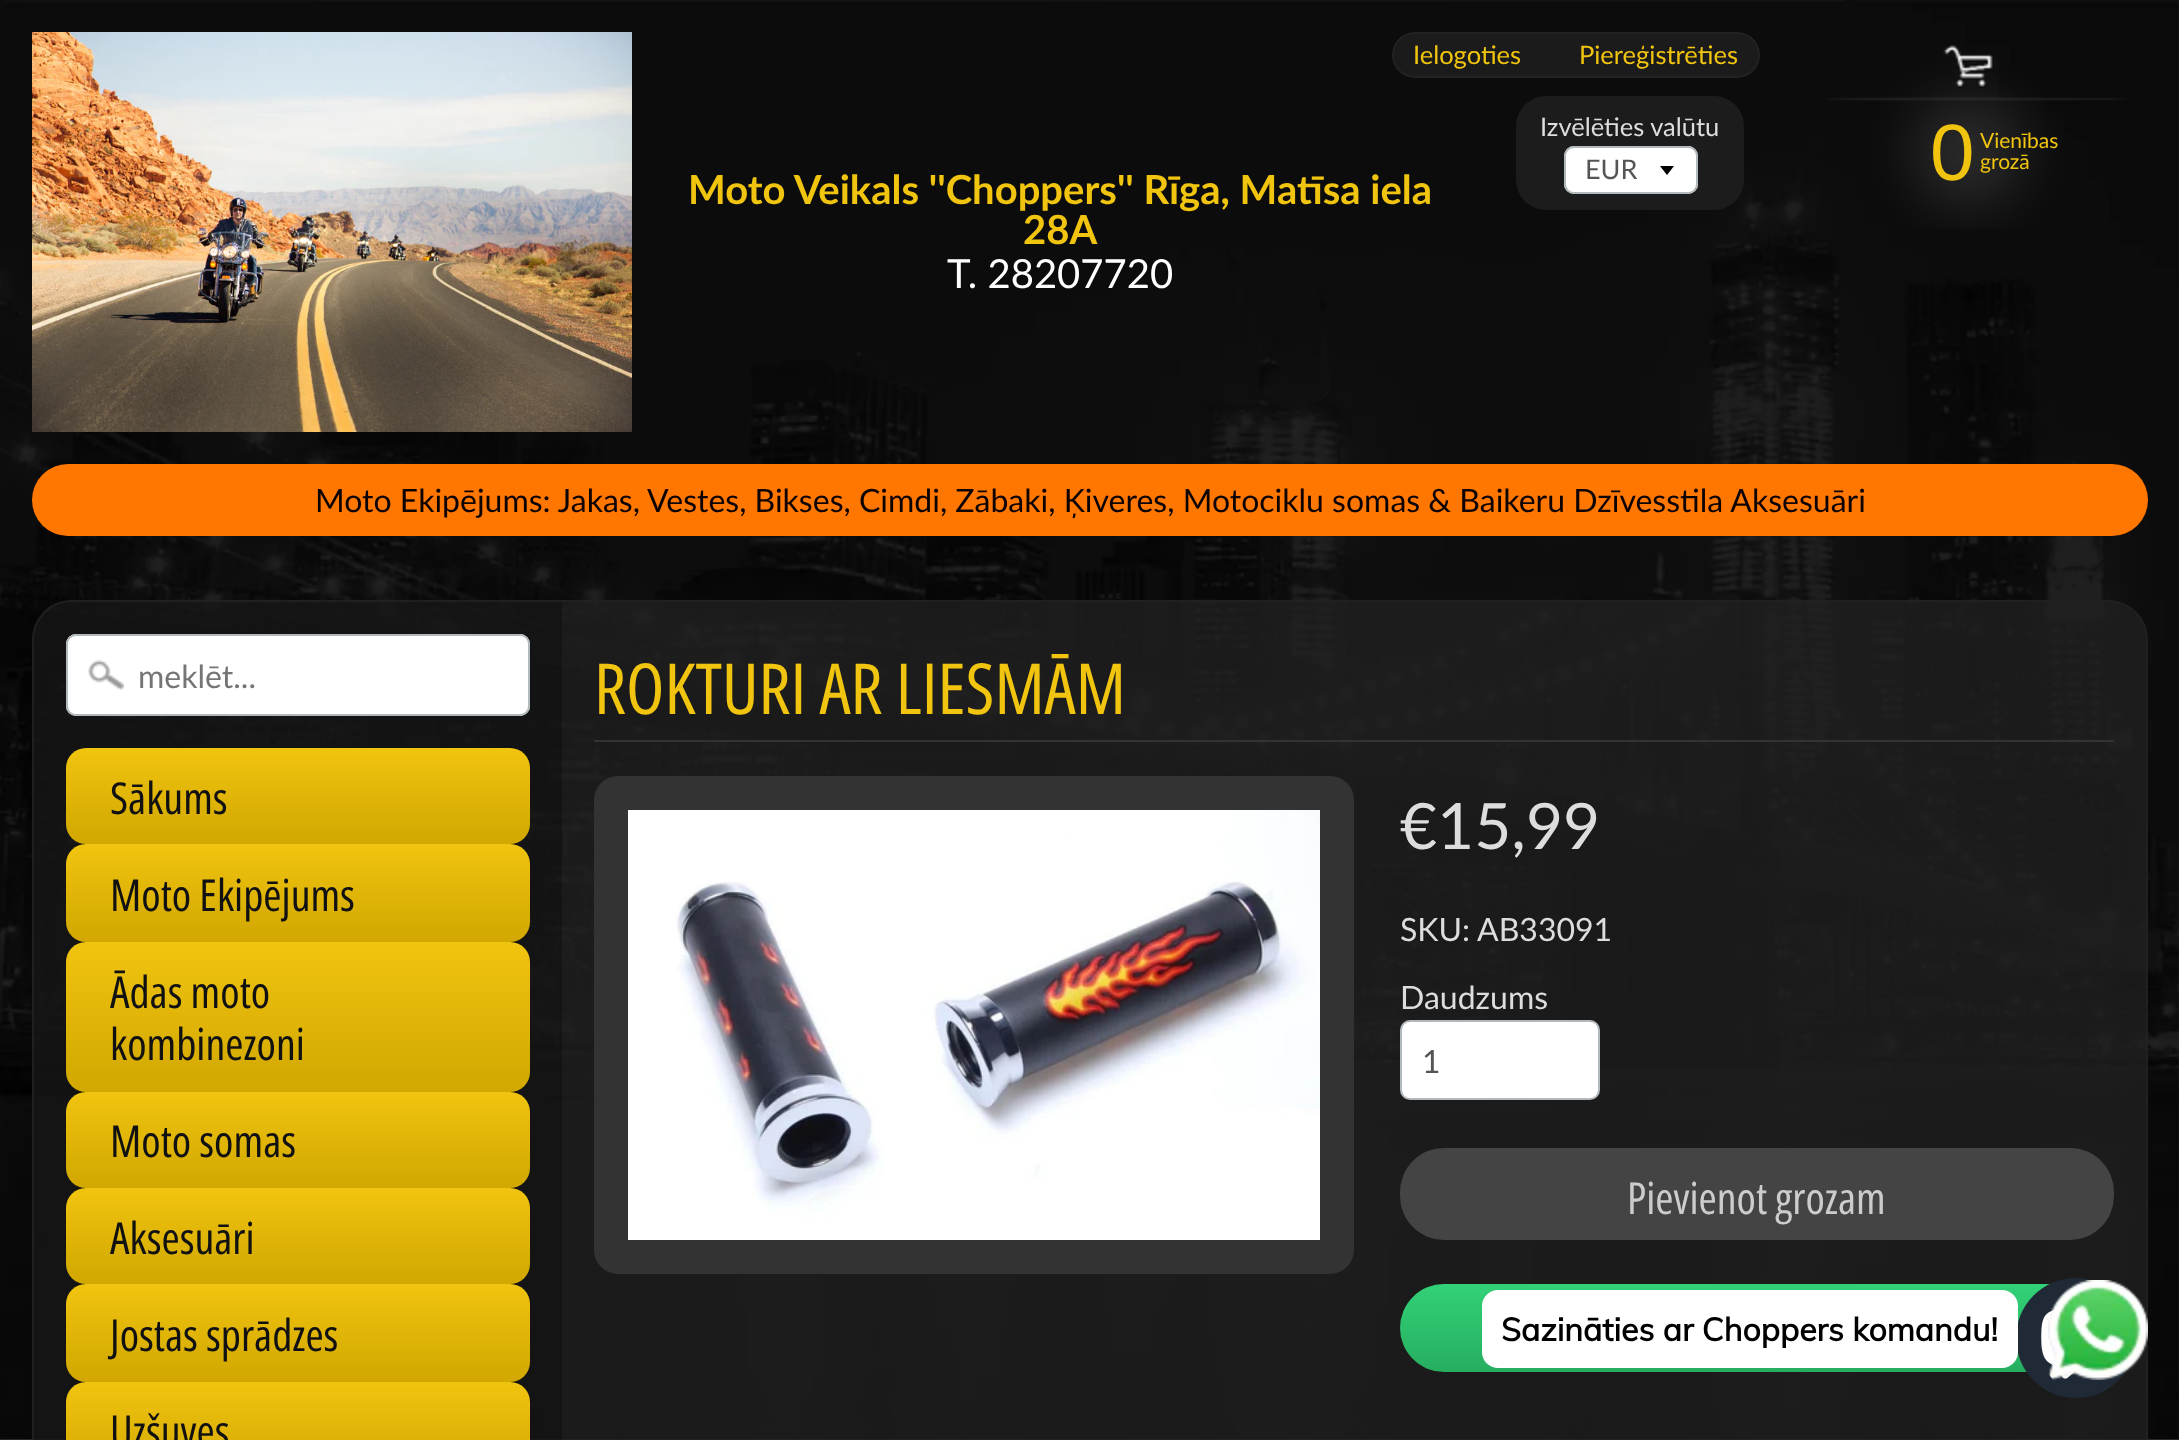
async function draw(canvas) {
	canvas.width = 2179;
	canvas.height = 1440;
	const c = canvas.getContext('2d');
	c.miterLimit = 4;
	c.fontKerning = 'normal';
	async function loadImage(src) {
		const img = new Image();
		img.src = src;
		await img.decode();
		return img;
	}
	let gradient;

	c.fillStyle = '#fff';
	c.fillRect(0, 0, 2179, 1440);
	c.drawImage(await loadImage('img1.png'), 0, 0, 2179, 1440);
	c.fillStyle = '#1b1b1b';
	c.beginPath();
	c.roundRect(1393, 33, 366, 44, 22);
	c.fill();
	c.strokeStyle = '#222';
	c.lineWidth = 2;
	c.stroke();
	c.font = '25.5px Lato';
	c.fillStyle = '#f1c40f';
	c.fillText('Ielogoties', 1413, 64);
	c.fillText('Piereģistrēties', 1579, 64);
	c.drawImage(await loadImage('img2.png'), 1827, 45, 300, 184);
	c.font = '80px Liberation Sans';
	c.fillText('0', 1930, 180);
	c.font = '21px Lato';
	c.fillText('Vienības', 1980, 148);
	c.fillText('grozā', 1980, 169);
	c.drawImage(await loadImage('img3.png'), 32, 32, 600, 400);
	c.font = 'bold 40px Lato';
	c.fillText('Moto Veikals \'\'Choppers\'\' Rīga, Matīsa iela', 688, 204);
	c.fillText('28A', 1023, 244);
	c.font = '40px Lato';
	c.fillStyle = '#fff';
	c.fillText('T. 28207720', 947, 288);
	c.fillStyle = '#f70';
	c.beginPath();
	c.roundRect(32, 464, 2116, 72, 36);
	c.fill();
	c.font = '32px Lato';
	c.fillStyle = '#0d0303';
	c.fillText('Moto Ekipējums: Jakas, Vestes, Bikses, Cimdi, Zābaki, Ķiveres, Motociklu somas & Baikeru Dzīvesstila Aksesuāri', 315, 512);
	c.fillStyle = '#222222bf';
	c.beginPath();
	c.roundRect(1516, 96, 228, 114, 30);
	c.fill();
	c.font = '25.5px Lato';
	c.fillStyle = '#ddd';
	c.fillText('Izvēlēties valūtu', 1540, 136);
	c.fillStyle = '#fff';
	c.beginPath();
	c.roundRect(1564, 146, 134, 48, 10);
	c.fill();
	c.fillStyle = '#000';
	c.beginPath();
	c.moveTo(1660, 166);
	c.lineTo(1667, 175);
	c.lineTo(1674, 166);
	c.closePath();
	c.fill();
	c.beginPath();
	c.roundRect(1565, 147, 132, 46, 9);
	c.strokeStyle = '#b2b9bd';
	c.stroke();
	c.font = '27px Lato';
	c.fillStyle = '#555';
	c.fillText('EUR', 1585, 179);
	c.fillStyle = '#222222bf';
	c.beginPath();
	c.roundRect(32, 600, 2116, 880, 40);
	c.fill();
	c.beginPath();
	c.roundRect(33, 601, 2114, 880, 39);
	c.strokeStyle = '#222222b3';
	c.stroke();
	c.fillStyle = '#00000040';
	c.beginPath();
	c.moveTo(72, 602);
	c.lineTo(562, 602);
	c.lineTo(562, 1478);
	c.lineTo(72, 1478);
	c.bezierCurveTo(51, 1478, 34, 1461, 34, 1440);
	c.lineTo(34, 640);
	c.bezierCurveTo(34, 619, 51, 602, 72, 602);
	c.closePath();
	c.fill();
	c.fillStyle = '#fff';
	c.beginPath();
	c.roundRect(66, 634, 464, 82, 10);
	c.fill();
	c.drawImage(await loadImage('img4.png'), 88, 660, 36, 30);
	c.beginPath();
	c.roundRect(67, 635, 462, 80, 9);
	c.strokeStyle = '#b2b9bd';
	c.stroke();
	c.font = '32px Lato';
	c.fillStyle = '#757575';
	c.fillText('meklēt...', 138, 688);
	gradient = c.createLinearGradient(298, 748, 298, 844);
	gradient.addColorStop(0, '#f1c40f');
	gradient.addColorStop(1, '#d1a701');
	c.fillStyle = gradient;
	c.beginPath();
	c.roundRect(66, 748, 464, 96, 20);
	c.fill();
	c.font = '44px Open Sans Condensed';
	c.fillStyle = '#111';
	c.fillText('Sākums', 110, 814);
	gradient = c.createLinearGradient(298, 844, 298, 942);
	gradient.addColorStop(0, '#f1c40f');
	gradient.addColorStop(1, '#d1a701');
	c.fillStyle = gradient;
	c.beginPath();
	c.roundRect(66, 844, 464, 98, 20);
	c.fill();
	c.fillStyle = '#111';
	c.fillText('Moto Ekipējums', 110, 911);
	gradient = c.createLinearGradient(298, 942, 298, 1092);
	gradient.addColorStop(0, '#f1c40f');
	gradient.addColorStop(1, '#d1a701');
	c.fillStyle = gradient;
	c.beginPath();
	c.roundRect(66, 942, 464, 150, 20);
	c.fill();
	c.fillStyle = '#111';
	c.fillText('Ādas moto', 110, 1008);
	c.fillText('kombinezoni', 110, 1060);
	gradient = c.createLinearGradient(298, 1092, 298, 1188);
	gradient.addColorStop(0, '#f1c40f');
	gradient.addColorStop(1, '#d1a701');
	c.fillStyle = gradient;
	c.beginPath();
	c.roundRect(66, 1092, 464, 96, 20);
	c.fill();
	c.fillStyle = '#111';
	c.fillText('Moto somas', 110, 1157);
	gradient = c.createLinearGradient(298, 1188, 298, 1284);
	gradient.addColorStop(0, '#f1c40f');
	gradient.addColorStop(1, '#d1a701');
	c.fillStyle = gradient;
	c.beginPath();
	c.roundRect(66, 1188, 464, 96, 20);
	c.fill();
	c.fillStyle = '#111';
	c.fillText('Aksesuāri', 110, 1254);
	gradient = c.createLinearGradient(298, 1284, 298, 1382);
	gradient.addColorStop(0, '#f1c40f');
	gradient.addColorStop(1, '#d1a701');
	c.fillStyle = gradient;
	c.beginPath();
	c.roundRect(66, 1284, 464, 98, 20);
	c.fill();
	c.fillStyle = '#111';
	c.fillText('Jostas sprādzes', 110, 1351);
	gradient = c.createLinearGradient(298, 1382, 298, 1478);
	gradient.addColorStop(0, '#f1c40f');
	gradient.addColorStop(1, '#d1a701');
	c.fillStyle = gradient;
	c.beginPath();
	c.roundRect(66, 1382, 464, 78, 20);
	c.fill();
	c.fillStyle = '#111';
	c.fillText('Uzšuves', 110, 1447);
	c.fillStyle = '#333';
	c.fillRect(594, 740, 1520, 2);
	c.font = '70.5px Open Sans Condensed';
	c.fillStyle = '#f1c40f';
	c.fillText('ROKTURI AR LIESMĀM', 594, 714);
	c.fillStyle = '#333';
	c.beginPath();
	c.roundRect(595, 777, 758, 496, 23);
	c.fill();
	c.strokeStyle = '#333';
	c.stroke();
	c.drawImage(await loadImage('img5.png'), 628, 810, 692, 430);
	c.font = '64px Lato';
	c.fillStyle = '#ddd';
	c.fillText('€15,99', 1400, 849);
	c.font = '32px Lato';
	for (const [text, x, y] of [
		['SKU:', 1400, 941],
		['AB33091', 1477, 941],
		['Daudzums', 1400, 1009],
	]) {
		c.fillText(text, x, y);
	}
	c.fillStyle = '#fff';
	c.beginPath();
	c.roundRect(1401, 1021, 198, 78, 9);
	c.fill();
	c.strokeStyle = '#b2b9bd';
	c.stroke();
	c.fillStyle = '#555';
	c.fillText('1', 1422, 1073);
	c.fillStyle = '#444';
	c.beginPath();
	c.roundRect(1400, 1148, 714, 92, 44);
	c.fill();
	c.font = '44px Open Sans Condensed';
	c.fillStyle = '#ccc';
	c.fillText('Pievienot grozam', 1627, 1214);
	gradient = c.createLinearGradient(1757, 1284, 1757, 1372);
	gradient.addColorStop(0, '#32d177');
	gradient.addColorStop(1, '#27ae60');
	c.fillStyle = gradient;
	c.beginPath();
	c.roundRect(1400, 1284, 714, 88, 44);
	c.fill();
	c.fillStyle = '#202a36';
	c.beginPath();
	c.arc(2076, 1338, 60, 0, 2 * Math.PI);
	c.fill();
	c.drawImage(await loadImage('img6.png'), 2041, 1310, 35, 69);
	c.drawImage(await loadImage('img7.png'), 2048, 1280, 100, 100);
	c.fillStyle = '#fff';
	c.beginPath();
	c.roundRect(1482, 1290, 536, 78, 16);
	c.fill();
	c.font = 'bold 32px Muli';
	c.fillStyle = '#000';
	c.fillText('Sazināties ar Choppers komandu!', 1501, 1341);
}

draw(document.querySelector('canvas'));
